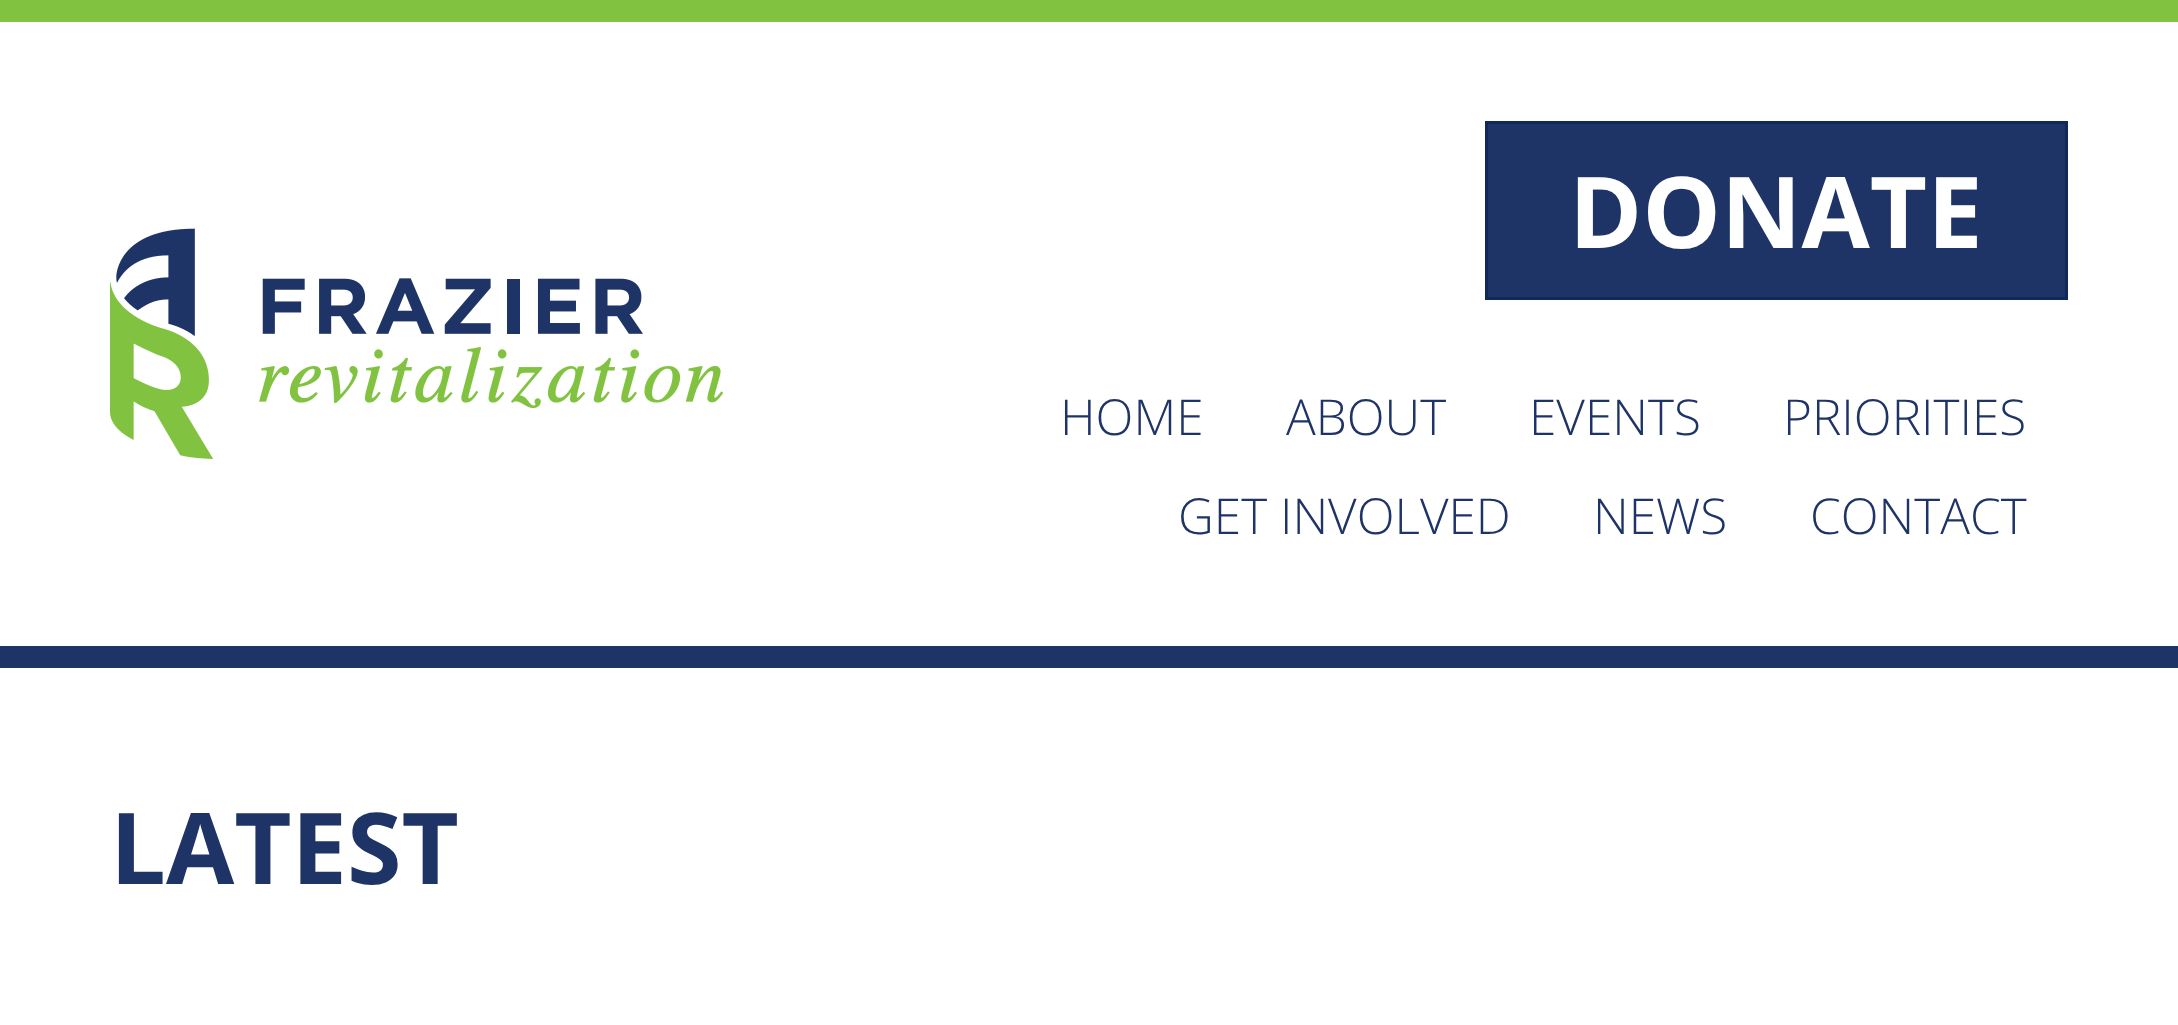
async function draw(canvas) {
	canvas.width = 2178;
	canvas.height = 1025;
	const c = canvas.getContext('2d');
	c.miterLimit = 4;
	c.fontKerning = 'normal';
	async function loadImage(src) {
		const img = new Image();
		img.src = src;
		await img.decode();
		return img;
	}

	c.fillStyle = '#fff';
	c.fillRect(0, 0, 2178, 1025);
	c.fillStyle = '#81c341';
	c.fillRect(0, 0, 2178, 22);
	c.fillStyle = '#1f3466';
	c.fillRect(0, 646, 2178, 22);
	c.drawImage(await loadImage('img1.png'), 110, 228, 613, 231);
	c.beginPath();
	c.rect(1486.5, 122.5, 580, 176);
	c.fill();
	c.strokeStyle = '#13285a';
	c.lineWidth = 3;
	c.stroke();
	c.font = 'bold 99px Open Sans';
	c.fillStyle = '#fff';
	c.fillText('DONATE', 1569, 248);
	c.font = '300 49.5px Open Sans';
	c.fillStyle = '#1f3466';
	for (const [text, x, y] of [
		['HOME', 1060, 435],
		['ABOUT', 1286, 435],
		['EVENTS', 1529, 435],
		['PRIORITIES', 1783, 435],
		['GET INVOLVED', 1178, 534],
		['NEWS', 1593, 534],
		['CONTACT', 1810, 534],
	]) {
		c.fillText(text, x, y);
	}
	c.font = 'bold 99px Open Sans';
	c.fillText('LATEST', 110, 884);
}

draw(document.querySelector('canvas'));
